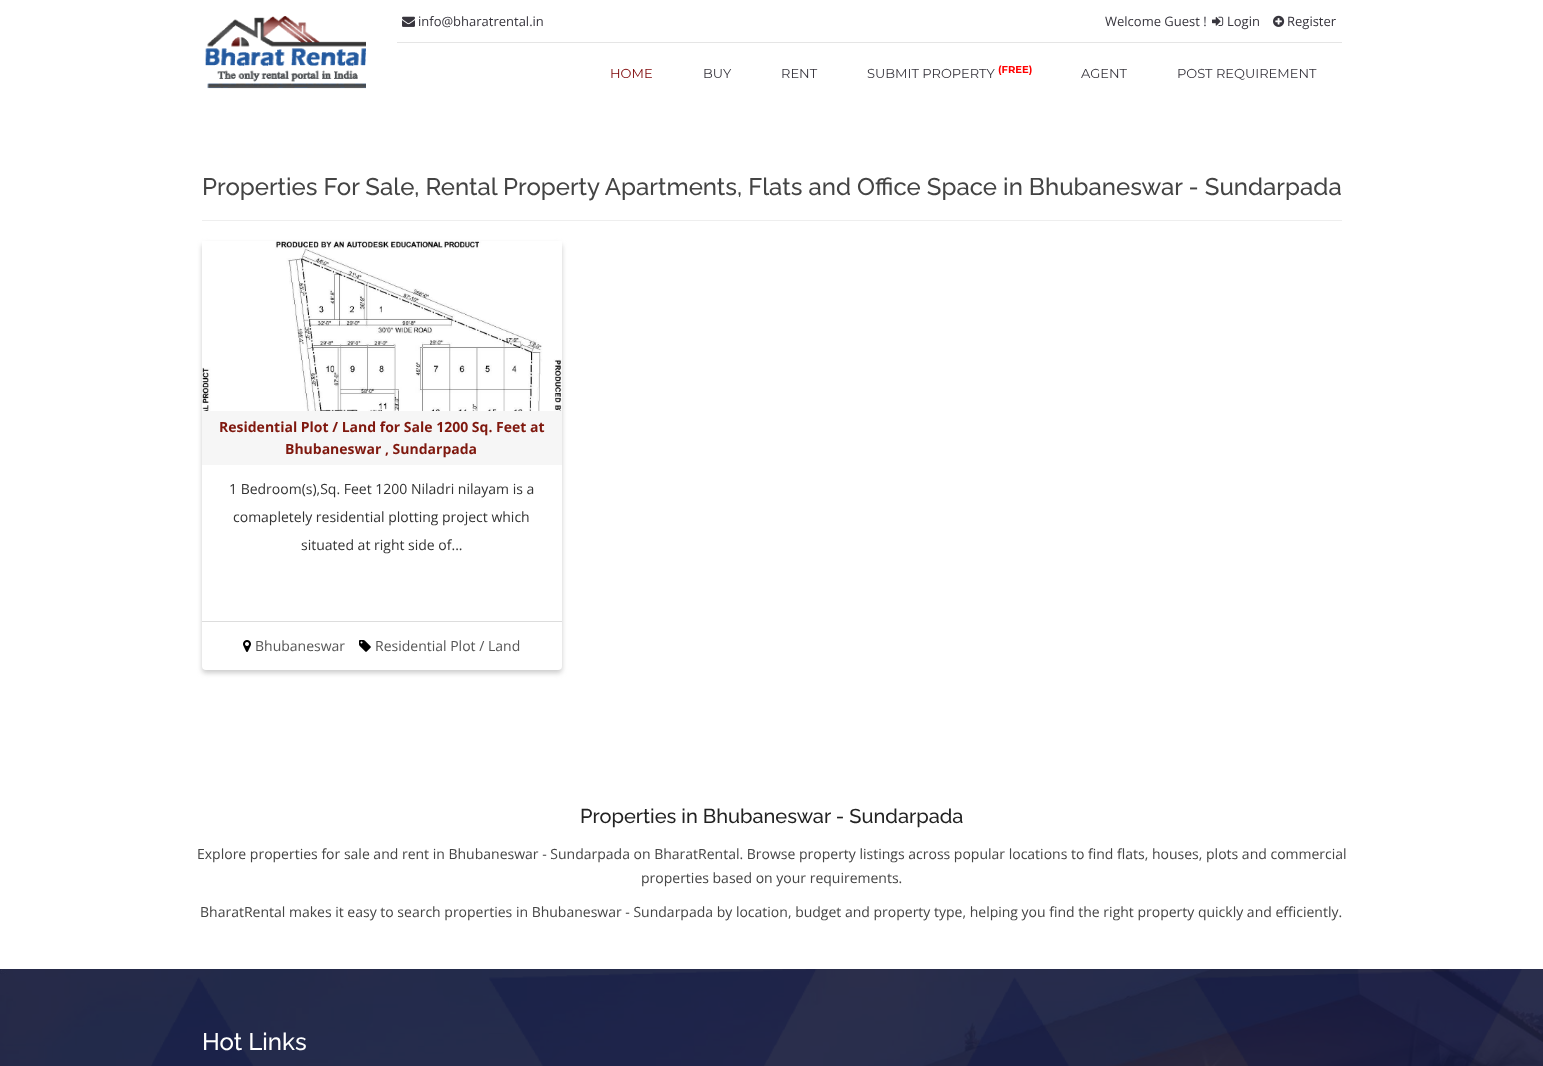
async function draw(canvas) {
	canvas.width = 1543;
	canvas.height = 1066;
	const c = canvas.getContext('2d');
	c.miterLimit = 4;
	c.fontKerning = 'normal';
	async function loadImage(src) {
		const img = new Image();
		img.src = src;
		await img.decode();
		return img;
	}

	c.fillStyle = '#fff';
	c.fillRect(0, 0, 1543, 1066);
	c.drawImage(await loadImage('img1.png'), 205, 16, 161, 73);
	c.fillStyle = '#e5e5e5';
	c.fillRect(397, 42, 945, 1);
	c.drawImage(await loadImage('img2.png'), 402, 16, 13, 11);
	c.font = '13px Open Sans';
	c.fillStyle = '#37353d';
	c.fillText('info@bharatrental.in', 418, 26);
	c.fillText('Welcome Guest !', 1105, 26);
	c.drawImage(await loadImage('img3.png'), 1212, 16, 12, 10);
	c.fillText('Login', 1227, 26);
	c.drawImage(await loadImage('img4.png'), 1273, 15, 12, 12);
	c.fillText('Register', 1287, 26);
	c.font = '13px Montserrat';
	c.fillStyle = '#7c0002';
	c.fillText('HOME', 610, 78);
	c.fillStyle = '#37353d';
	for (const [text, x, y] of [
		['BUY', 703, 78],
		['RENT', 781, 78],
		['SUBMIT PROPERTY', 867, 78],
	]) {
		c.fillText(text, x, y);
	}
	c.font = 'bold 10px Montserrat';
	c.fillStyle = '#f00';
	c.fillText('(FREE)', 998, 73);
	c.font = '13px Montserrat';
	c.fillStyle = '#37353d';
	c.fillText('AGENT', 1081, 78);
	c.fillText('POST REQUIREMENT', 1177, 78);
	c.font = '500 24px Raleway';
	c.fillStyle = '#444';
	c.fillText('Properties For Sale, Rental Property Apartments, Flats and Office Space in Bhubaneswar - Sundarpada', 202, 195);
	c.fillStyle = '#eee';
	c.fillRect(202, 220, 1140, 1);
	c.fillStyle = '#ccc';
	c.filter = 'blur(2.5px)';
	c.beginPath();
	c.roundRect(202, 244, 360, 429, 4);
	c.fill();
	c.filter = 'none';
	c.fillStyle = '#fff';
	c.beginPath();
	c.roundRect(202, 241, 360, 429, 4);
	c.fill();
	c.drawImage(await loadImage('img5.png'), 202, 241, 360, 170);
	c.fillStyle = '#f6f6f6';
	c.fillRect(202, 411, 360, 54);
	c.font = 'bold 14px Open Sans';
	c.fillStyle = '#7f180e';
	c.fillText('Residential Plot / Land for Sale 1200 Sq. Feet at', 219, 432);
	c.fillText('Bhubaneswar , Sundarpada', 285, 454);
	c.font = '14px Open Sans';
	c.fillStyle = '#333';
	for (const [text, x, y] of [
		['1 Bedroom(s),Sq. Feet 1200 Niladri nilayam is a', 229, 494],
		['comapletely residential plotting project which', 233, 522],
		['situated at right side of...', 301, 550],
	]) {
		c.fillText(text, x, y);
	}
	c.fillStyle = '#ddd';
	c.fillRect(202, 621, 360, 1);
	c.drawImage(await loadImage('img6.png'), 243, 640, 8, 12);
	c.fillStyle = '#555';
	c.fillText('Bhubaneswar', 255, 651);
	c.drawImage(await loadImage('img7.png'), 359, 640, 12, 12);
	c.fillText('Residential Plot / Land', 375, 651);
	c.font = '500 20px Raleway';
	c.fillStyle = '#222';
	c.fillText('Properties in Bhubaneswar - Sundarpada', 580, 823);
	c.font = '14px Open Sans';
	c.fillStyle = '#444';
	for (const [text, x, y] of [
		['Explore properties for sale and rent in Bhubaneswar - Sundarpada on BharatRental. Browse property listings across popular locations to find flats, houses, plots and commercial', 197, 859],
		['properties based on your requirements.', 641, 883],
		['BharatRental makes it easy to search properties in Bhubaneswar - Sundarpada by location, budget and property type, helping you find the right property quickly and efficiently.', 200, 917],
	]) {
		c.fillText(text, x, y);
	}
	c.drawImage(await loadImage('img8.png'), 0, 969, 1543, 97);
	c.drawImage(await loadImage('img9.png'), 0, 969, 1543, 97);
	c.font = '500 24px Raleway';
	c.fillStyle = '#fff';
	c.fillText('Hot Links', 202, 1050);
}

draw(document.querySelector('canvas'));
